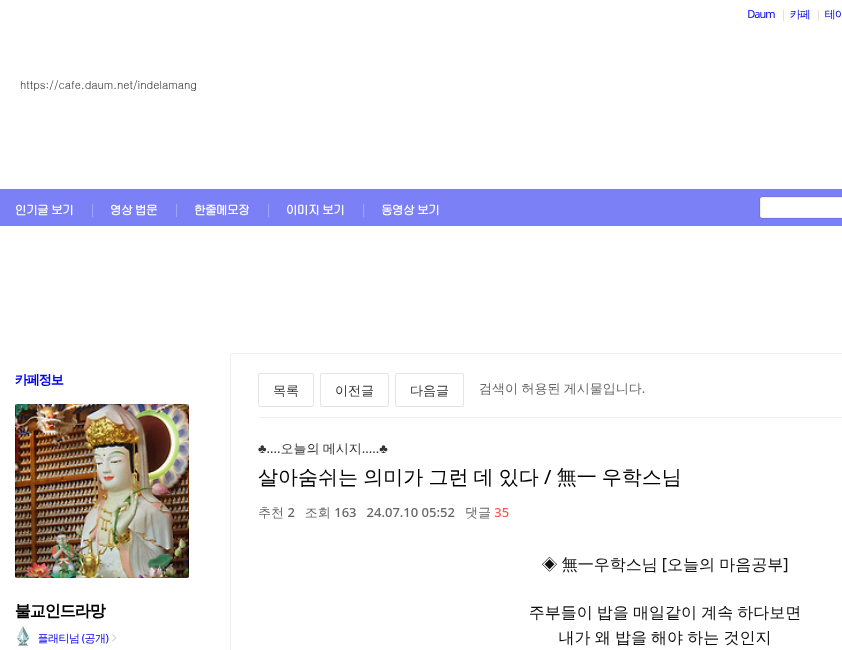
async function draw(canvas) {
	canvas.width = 842;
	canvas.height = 650;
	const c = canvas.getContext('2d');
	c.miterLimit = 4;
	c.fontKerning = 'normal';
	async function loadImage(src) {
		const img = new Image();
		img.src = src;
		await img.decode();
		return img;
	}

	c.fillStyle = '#fff';
	c.fillRect(0, 0, 842, 650);
	c.drawImage(await loadImage('img1.png'), 0, 9, 842, 641);
}

draw(document.querySelector('canvas'));
